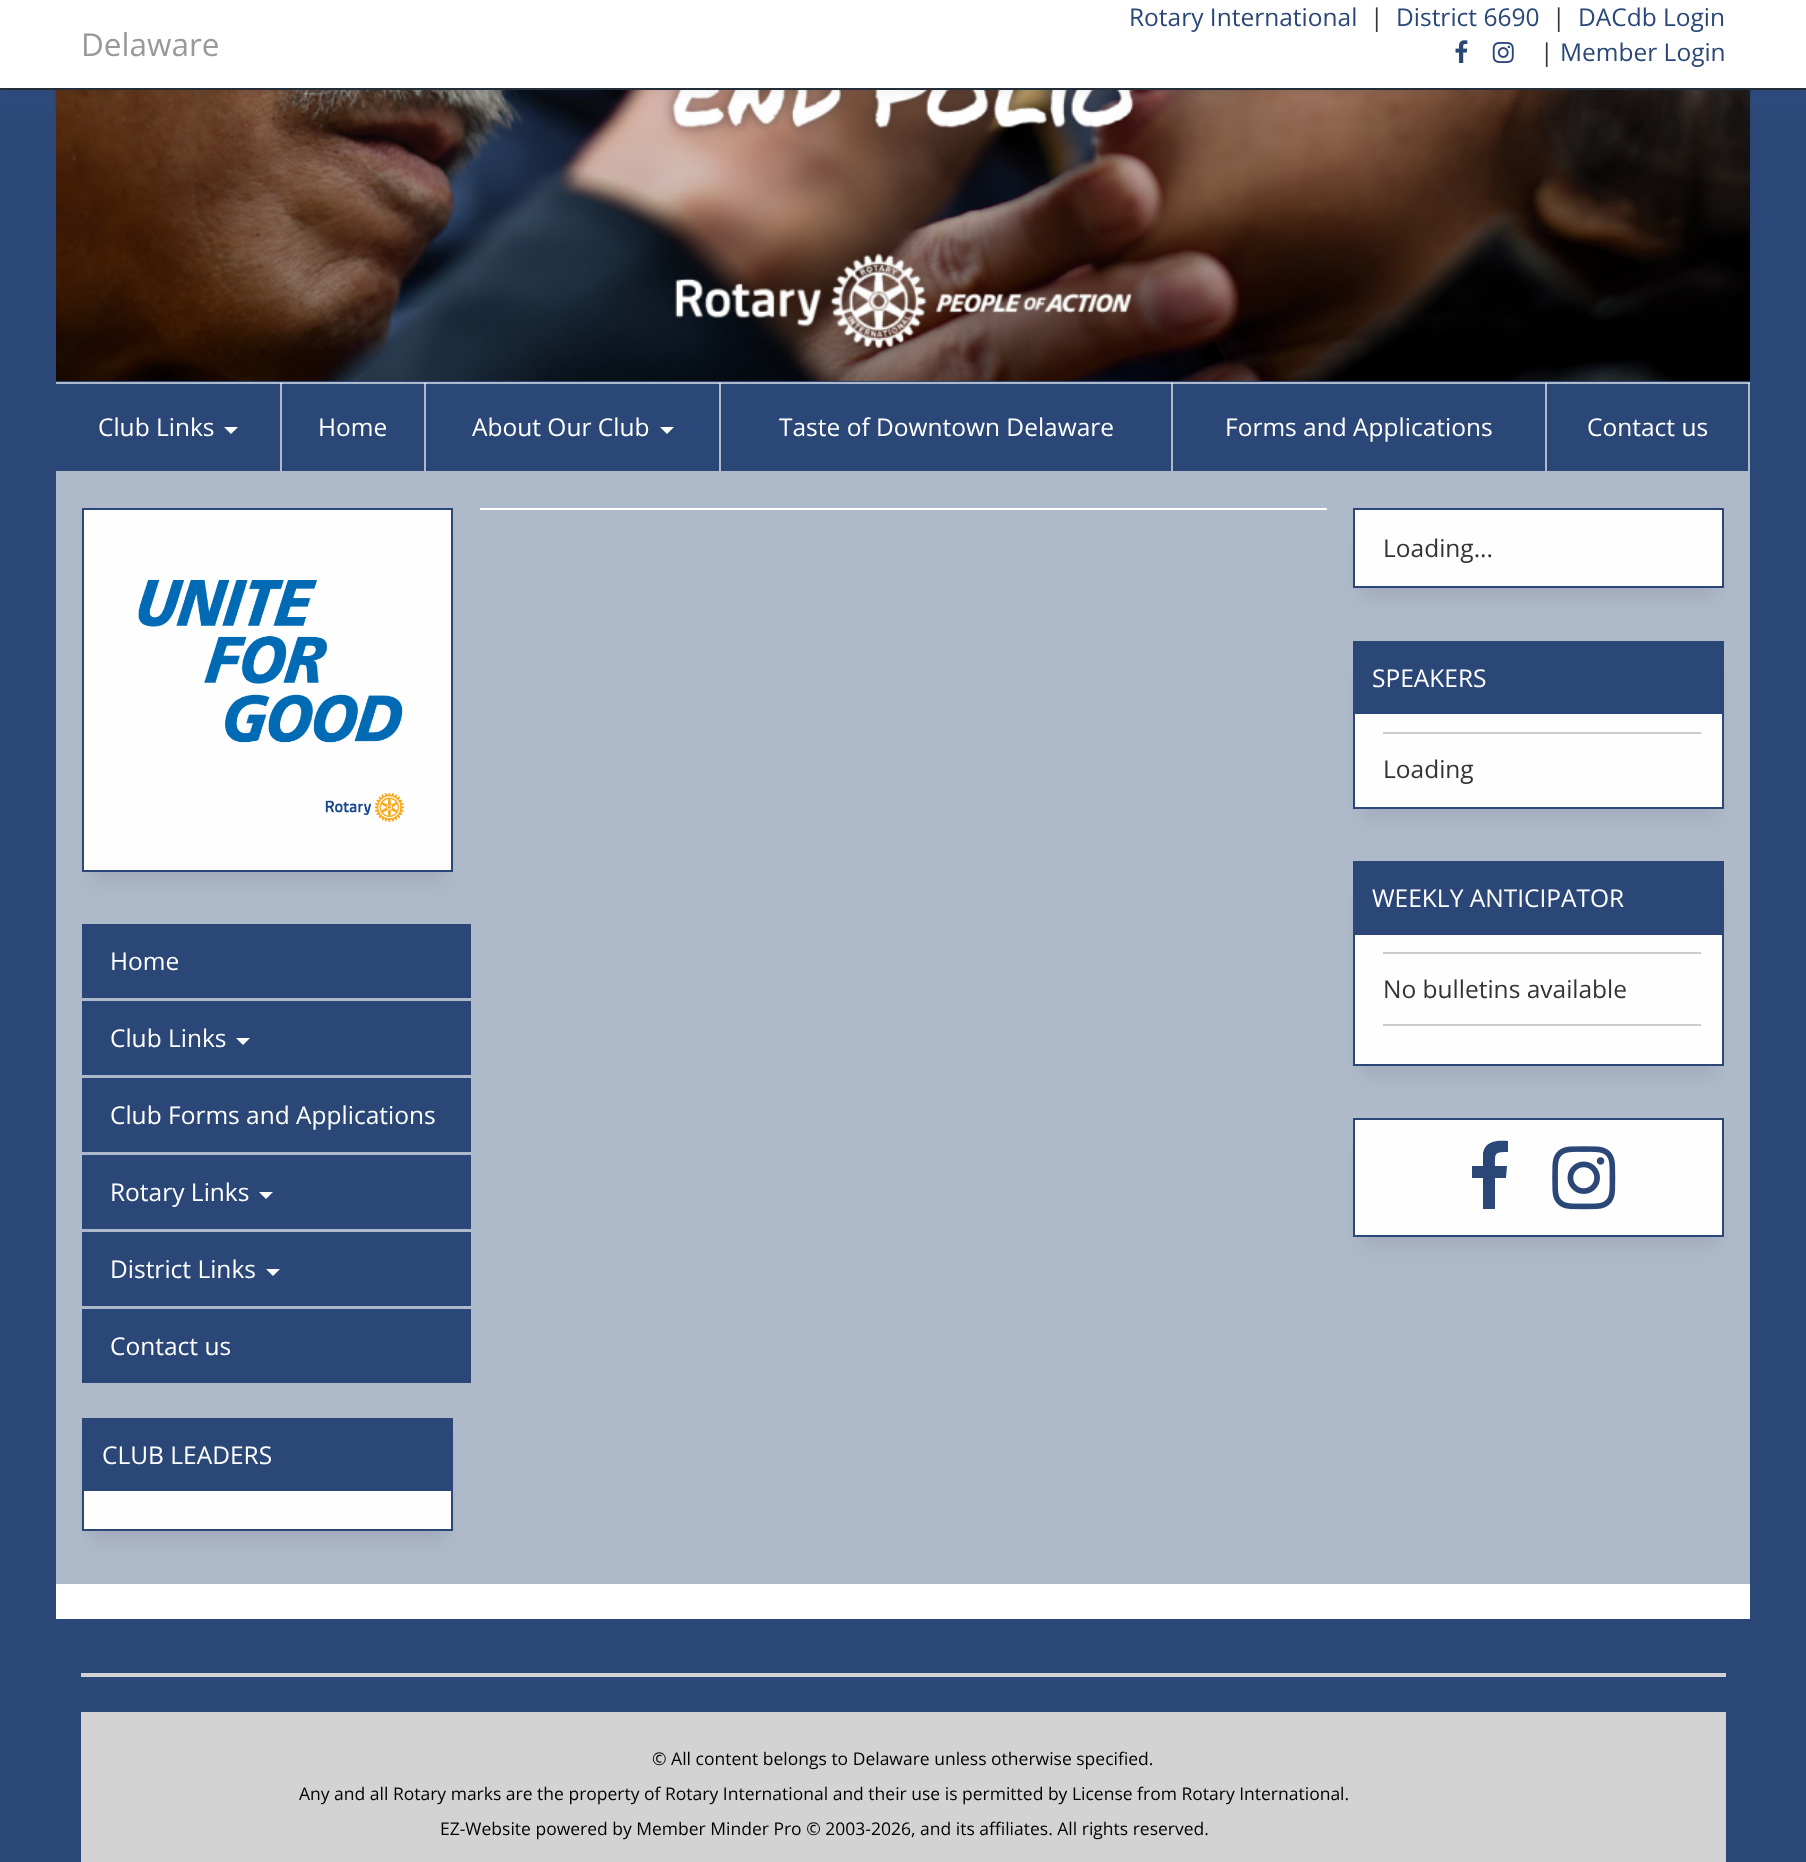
async function draw(canvas) {
	canvas.width = 1806;
	canvas.height = 1862;
	const c = canvas.getContext('2d');
	c.miterLimit = 4;
	c.fontKerning = 'normal';
	async function loadImage(src) {
		const img = new Image();
		img.src = src;
		await img.decode();
		return img;
	}
	let gradient;

	c.fillStyle = '#fff';
	c.fillRect(0, 0, 1806, 1862);
	gradient = c.createLinearGradient(903, -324, 903, 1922);
	gradient.addColorStop(0.06, '#4f76b6');
	gradient.addColorStop(0.2, '#2a4777');
	c.fillStyle = gradient;
	c.fillRect(0, 90, 1806, 1772);
	gradient = c.createLinearGradient(903, -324, 903, 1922);
	gradient.addColorStop(0.06, '#bccbe3');
	gradient.addColorStop(0.2, '#aeb9cb');
	c.fillStyle = gradient;
	c.fillRect(1748, 383, 2, 88);
	c.fillRect(1545, 383, 2, 88);
	c.fillRect(1171, 383, 2, 88);
	c.fillRect(719, 383, 2, 88);
	c.fillRect(424, 383, 2, 88);
	c.fillRect(280, 383, 2, 88);
	c.strokeStyle = '#2a4777';
	c.lineWidth = 2;
	c.strokeRect(55, -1, 1696, 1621);
	c.drawImage(await loadImage('img3.png'), 56, 90, 1694, 292);
	c.fillStyle = '#00000012';
	c.filter = 'blur(4.5px)';
	c.beginPath();
	c.rect(0, 2, 1806, 89);
	c.fill();
	c.filter = 'none';
	c.fillStyle = '#fff';
	c.fillRect(0, 0, 1806, 88);
	c.fillStyle = '#242e38';
	c.fillRect(0, 88, 1806, 2);
	c.font = '24.5px Open Sans';
	c.fillStyle = '#2a4777';
	c.fillText('Rotary International', 1129, 26);
	c.fillStyle = '#333';
	c.fillText('|', 1370, 26);
	c.fillStyle = '#2a4777';
	c.fillText('District 6690', 1396, 26);
	c.fillStyle = '#333';
	c.fillText('|', 1552, 26);
	c.fillStyle = '#2a4777';
	c.fillText('DACdb Login', 1578, 26);
	c.font = '31.5px Open Sans';
	c.fillStyle = '#999';
	c.fillText('Delaware', 81, 56);
	c.drawImage(await loadImage('img1.png'), 1455, 40, 13, 23);
	c.drawImage(await loadImage('img2.png'), 1492, 42, 22, 21);
	c.font = '24.5px Open Sans';
	c.fillStyle = '#333';
	c.fillText('|', 1540, 61);
	c.fillStyle = '#2a4777';
	c.fillText('Member Login', 1560, 61);
	for (const [x, y, w, h, color] of [
		[56, 382, 1694, 2, '#aeb9cb'],
		[1748, 383, 2, 1, '#e0e4eb'],
		[1545, 383, 2, 1, '#e0e4eb'],
		[1171, 383, 2, 1, '#e0e4eb'],
		[719, 383, 2, 1, '#e0e4eb'],
		[424, 383, 2, 1, '#e0e4eb'],
		[280, 383, 2, 1, '#e0e4eb'],
		[56, 471, 1694, 2, '#aeb9cb'],
	]) {
		c.fillStyle = color;
		c.fillRect(x, y, w, h);
	}
	c.fillStyle = '#fff';
	c.fillText('Club Links', 98, 436);
	c.beginPath();
	c.moveTo(224, 427);
	c.lineTo(238, 427);
	c.lineTo(231, 434);
	c.closePath();
	c.fill();
	c.fillText('Home', 318, 436);
	c.fillText('About Our Club', 472, 436);
	c.beginPath();
	c.moveTo(660, 427);
	c.lineTo(674, 427);
	c.lineTo(667, 434);
	c.closePath();
	c.fill();
	for (const [text, x, y] of [
		['Taste of Downtown Delaware', 779, 436],
		['Forms and Applications', 1225, 436],
		['Contact us', 1587, 436],
	]) {
		c.fillText(text, x, y);
	}
	c.fillStyle = '#aeb9ca';
	c.fillRect(56, 473, 1694, 1111);
	c.fillStyle = '#fff';
	c.fillRect(480, 508, 847, 2);
	c.fillStyle = '#00000014';
	c.filter = 'blur(9px)';
	c.beginPath();
	c.rect(1362, 534, 353, 63);
	c.fill();
	c.filter = 'none';
	c.fillStyle = '#fefefe';
	c.beginPath();
	c.rect(1354, 509, 369, 78);
	c.fill();
	c.stroke();
	c.fillStyle = '#333';
	c.fillText('Loading...', 1383, 557);
	c.fillStyle = '#00000014';
	c.filter = 'blur(9px)';
	c.beginPath();
	c.rect(1362, 667, 353, 150);
	c.fill();
	c.filter = 'none';
	c.fillStyle = '#fefefe';
	c.fillRect(1355, 714, 367, 93);
	c.strokeRect(1354, 642, 369, 166);
	c.fillStyle = '#2a4777';
	c.fillRect(1355, 643, 367, 71);
	c.fillStyle = '#fff';
	c.fillText('SPEAKERS', 1372, 687);
	c.fillStyle = '#ccc';
	c.fillRect(1383, 732, 318, 2);
	c.fillStyle = '#333';
	c.fillText('Loading', 1383, 778);
	c.fillStyle = '#00000014';
	c.filter = 'blur(9px)';
	c.beginPath();
	c.rect(1362, 887, 353, 188);
	c.fill();
	c.filter = 'none';
	c.fillStyle = '#fefefe';
	c.fillRect(1355, 935, 367, 129);
	c.strokeRect(1354, 862, 369, 203);
	c.fillStyle = '#2a4777';
	c.fillRect(1355, 863, 367, 72);
	c.fillStyle = '#fff';
	c.fillText('WEEKLY ANTICIPATOR', 1372, 907);
	c.fillStyle = '#ccc';
	c.fillRect(1383, 952, 318, 2);
	c.fillStyle = '#333';
	c.fillText('No bulletins available', 1383, 998);
	c.fillStyle = '#ccc';
	c.fillRect(1383, 1024, 318, 2);
	c.fillStyle = '#00000014';
	c.filter = 'blur(9px)';
	c.beginPath();
	c.rect(1362, 1145, 353, 101);
	c.fill();
	c.filter = 'none';
	c.fillStyle = '#fefefe';
	c.beginPath();
	c.rect(1354, 1119, 369, 117);
	c.fill();
	c.stroke();
	c.fillStyle = '#2a4777';
	c.beginPath();
	c.moveTo(1508, 1141);
	c.lineTo(1508, 1152);
	c.bezierCurveTo(1494, 1152, 1495, 1153, 1495, 1166);
	c.lineTo(1507, 1166);
	c.lineTo(1506, 1178);
	c.lineTo(1495, 1178);
	c.lineTo(1495, 1209);
	c.lineTo(1483, 1209);
	c.lineTo(1483, 1178);
	c.lineTo(1472, 1178);
	c.lineTo(1472, 1166);
	c.lineTo(1483, 1166);
	c.lineTo(1483, 1153);
	c.bezierCurveTo(1485, 1141, 1497, 1140, 1508, 1141);
	c.closePath();
	c.fill();
	c.drawImage(await loadImage('img4.png'), 1552, 1146, 64, 64);
	c.fillStyle = '#00000014';
	c.filter = 'blur(9px)';
	c.beginPath();
	c.rect(91, 534, 354, 346);
	c.fill();
	c.filter = 'none';
	c.fillStyle = '#fefefe';
	c.beginPath();
	c.rect(83, 509, 369, 362);
	c.fill();
	c.stroke();
	c.drawImage(await loadImage('img5.png'), 138, 580, 266, 242);
	c.fillStyle = '#2a4777';
	c.fillRect(82, 924, 389, 74);
	c.fillStyle = '#fff';
	c.fillText('Home', 110, 970);
	c.fillStyle = '#2a4777';
	c.fillRect(82, 1001, 389, 74);
	c.fillStyle = '#fff';
	c.fillText('Club Links', 110, 1047);
	c.beginPath();
	c.moveTo(236, 1038);
	c.lineTo(250, 1038);
	c.lineTo(243, 1045);
	c.closePath();
	c.fill();
	c.fillStyle = '#2a4777';
	c.fillRect(82, 1078, 389, 74);
	c.fillStyle = '#fff';
	c.fillText('Club Forms and Applications', 110, 1124);
	c.fillStyle = '#2a4777';
	c.fillRect(82, 1155, 389, 74);
	c.fillStyle = '#fff';
	c.fillText('Rotary Links', 110, 1201);
	c.beginPath();
	c.moveTo(259, 1192);
	c.lineTo(273, 1192);
	c.lineTo(266, 1199);
	c.closePath();
	c.fill();
	c.fillStyle = '#2a4777';
	c.fillRect(82, 1232, 389, 74);
	c.fillStyle = '#fff';
	c.fillText('District Links', 110, 1278);
	c.beginPath();
	c.moveTo(266, 1269);
	c.lineTo(280, 1269);
	c.lineTo(273, 1276);
	c.closePath();
	c.fill();
	c.fillStyle = '#2a4777';
	c.fillRect(82, 1309, 389, 74);
	c.fillStyle = '#fff';
	c.fillText('Contact us', 110, 1355);
	c.fillStyle = '#00000014';
	c.filter = 'blur(9px)';
	c.beginPath();
	c.rect(91, 1444, 354, 96);
	c.fill();
	c.filter = 'none';
	c.fillStyle = '#fefefe';
	c.fillRect(84, 1491, 367, 38);
	c.strokeRect(83, 1419, 369, 111);
	c.fillStyle = '#2a4777';
	c.fillRect(84, 1420, 367, 71);
	c.fillStyle = '#fff';
	c.fillText('CLUB LEADERS', 102, 1464);
	for (const [x, y, w, h, color] of [
		[56, 1584, 1694, 35, '#fff'],
		[81, 1673, 1645, 4, '#d3d3d3'],
		[81, 1712, 1645, 150, '#d3d3d3'],
	]) {
		c.fillStyle = color;
		c.fillRect(x, y, w, h);
	}
	c.font = '17.5px Open Sans';
	c.fillStyle = '#000';
	for (const [text, x, y] of [
		['© All content belongs to Delaware unless otherwise specified.', 652, 1765],
		['Any and all Rotary marks are the property of Rotary International and their use is permitted by License from Rotary International.', 299, 1800],
		['EZ-Website powered by Member Minder Pro © 2003-2026, and its affiliates. All rights reserved.', 440, 1835],
	]) {
		c.fillText(text, x, y);
	}
}

draw(document.querySelector('canvas'));
